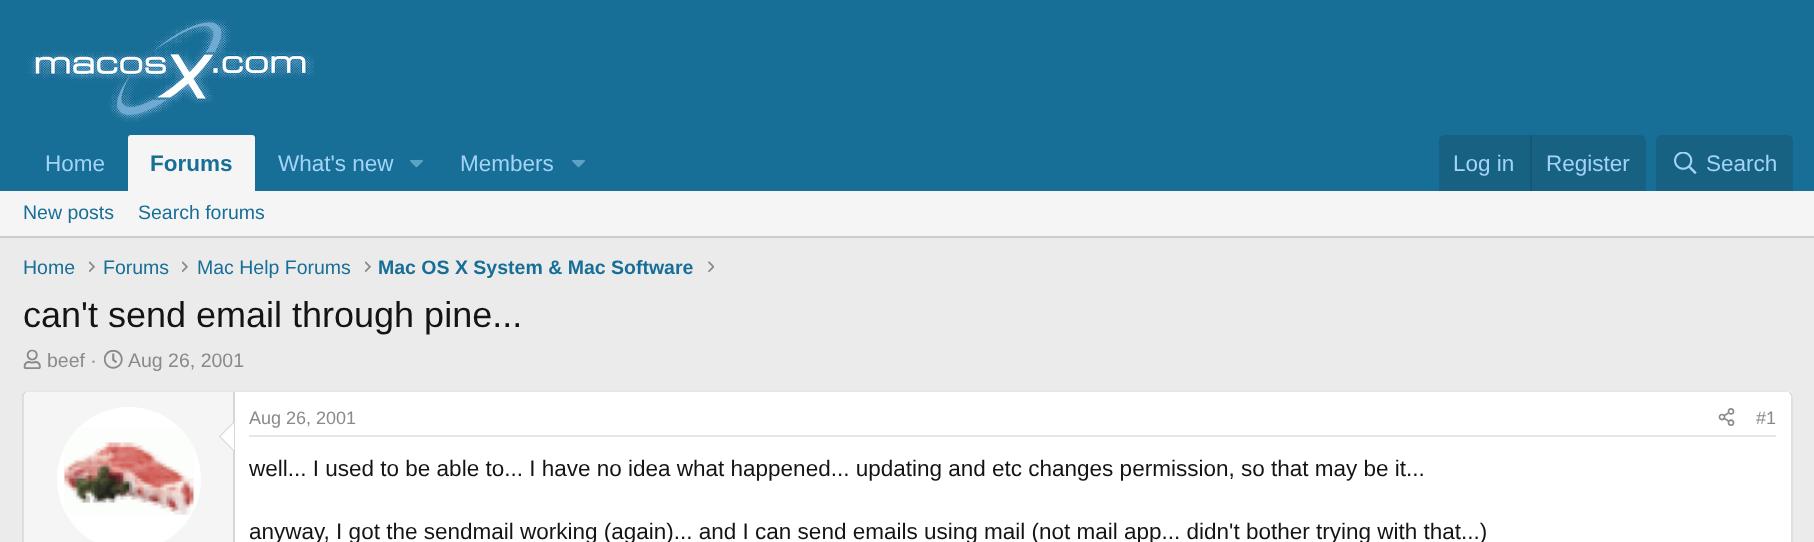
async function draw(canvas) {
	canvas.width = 1814;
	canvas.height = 542;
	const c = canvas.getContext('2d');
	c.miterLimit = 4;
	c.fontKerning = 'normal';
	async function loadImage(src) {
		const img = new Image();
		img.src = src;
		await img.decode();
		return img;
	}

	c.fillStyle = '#ebebeb';
	c.fillRect(0, 0, 1814, 542);
	c.fillStyle = '#176e97';
	c.fillRect(0, 0, 1814, 191);
	c.drawImage(await loadImage('img1.png'), 27, 18, 289, 104);
	c.font = '22.5px Liberation Sans';
	c.fillStyle = '#a3d4f5';
	c.fillText('Home', 45, 171);
	c.fillStyle = '#f5f5f5';
	c.beginPath();
	c.roundRect(128, 135, 127, 56, [3, 3, 0, 0]);
	c.fill();
	c.font = 'bold 22.5px Liberation Sans';
	c.fillStyle = '#176e97';
	c.fillText('Forums', 150, 171);
	c.font = '22.5px Liberation Sans';
	c.fillStyle = '#a3d4f5';
	c.fillText('What\'s new', 278, 171);
	c.drawImage(await loadImage('img2.png'), 410, 159, 13, 9);
	c.fillText('Members', 460, 171);
	c.drawImage(await loadImage('img2.png'), 572, 159, 13, 9);
	c.fillStyle = '#176183';
	c.beginPath();
	c.roundRect(1439, 135, 207, 56, [6, 6, 0, 0]);
	c.fill();
	c.fillStyle = '#a3d4f5';
	c.fillText('Log in', 1453, 171);
	c.fillStyle = '#175572';
	c.fillRect(1530, 135, 2, 56);
	c.fillStyle = '#a3d4f5';
	c.fillText('Register', 1546, 171);
	c.fillStyle = '#176183';
	c.beginPath();
	c.roundRect(1656, 135, 137, 56, [6, 6, 0, 0]);
	c.fill();
	c.drawImage(await loadImage('img3.png'), 1674, 152, 23, 22);
	c.fillStyle = '#a3d4f5';
	c.fillText('Search', 1706, 171);
	c.fillStyle = '#f5f5f5';
	c.fillRect(0, 191, 1814, 45);
	c.fillStyle = '#ccc';
	c.fillRect(0, 236, 1814, 2);
	c.font = '19.5px Liberation Sans';
	c.fillStyle = '#176e97';
	for (const [text, x, y] of [
		['New posts', 23, 219],
		['Search forums', 138, 219],
		['Home', 23, 274],
	]) {
		c.fillText(text, x, y);
	}
	c.drawImage(await loadImage('img4.png'), 89, 261, 6, 12);
	c.fillText('Forums', 103, 274);
	c.drawImage(await loadImage('img4.png'), 182, 261, 6, 12);
	c.fillText('Mac Help Forums', 197, 274);
	c.drawImage(await loadImage('img4.png'), 365, 261, 6, 12);
	c.font = 'bold 19.5px Liberation Sans';
	c.fillText('Mac OS X System & Mac Software', 378, 274);
	c.drawImage(await loadImage('img5.png'), 708, 261, 6, 12);
	c.font = '36px Liberation Sans';
	c.fillStyle = '#141414';
	c.fillText('can\'t send email through pine...', 23, 327);
	c.drawImage(await loadImage('img6.png'), 23, 349, 18, 20);
	c.font = '19.5px Liberation Sans';
	c.fillStyle = '#8a8a8a';
	c.fillText('beef ·', 47, 367);
	c.drawImage(await loadImage('img7.png'), 103, 349, 20, 20);
	c.fillText('Aug 26, 2001', 128, 367);
	c.fillStyle = '#fff';
	c.beginPath();
	c.roundRect(23, 390, 1770, 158, 6);
	c.fill();
	c.beginPath();
	c.moveTo(25, 392.5);
	c.bezierCurveTo(26, 391.5, 27, 391, 28.5, 391);
	c.lineTo(1786.5, 391);
	c.bezierCurveTo(1788, 391, 1789, 391.5, 1790, 392.5);
	c.strokeStyle = '#e0e0e0';
	c.lineWidth = 1.5;
	c.stroke();
	c.beginPath();
	c.moveTo(1790, 392.5);
	c.bezierCurveTo(1791, 393.5, 1792, 394.5, 1792, 396);
	c.lineTo(1792, 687);
	c.bezierCurveTo(1792, 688.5, 1791, 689.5, 1790, 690.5);
	c.strokeStyle = '#d6d6d6';
	c.stroke();
	c.beginPath();
	c.moveTo(25, 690.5);
	c.bezierCurveTo(24, 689.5, 23, 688.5, 23, 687);
	c.lineTo(23, 396);
	c.bezierCurveTo(23, 394.5, 24, 393.5, 25, 392.5);
	c.stroke();
	c.fillStyle = '#f5f5f5';
	c.beginPath();
	c.moveTo(29, 392);
	c.lineTo(234, 392);
	c.lineTo(234, 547);
	c.lineTo(29, 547);
	c.bezierCurveTo(26, 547, 24, 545, 24, 542);
	c.lineTo(24, 397);
	c.bezierCurveTo(24, 394, 26, 392, 29, 392);
	c.closePath();
	c.fill();
	c.fillStyle = '#d6d6d6';
	c.fillRect(233, 392, 2, 150);
	c.fillStyle = '#fff';
	c.beginPath();
	c.arc(129, 479, 72, 0, 2 * Math.PI);
	c.fill();
	c.drawImage(await loadImage('img8.png'), 64, 427, 130, 88);
	c.fillStyle = '#d6d6d6';
	c.beginPath();
	c.moveTo(234, 421.5);
	c.lineTo(234, 451.5);
	c.lineTo(219, 436.5);
	c.closePath();
	c.fill();
	c.fillStyle = '#fff';
	c.beginPath();
	c.moveTo(234, 423);
	c.lineTo(234, 450);
	c.lineTo(220.5, 436.5);
	c.closePath();
	c.fill();
	c.fillStyle = '#e6e6e6';
	c.fillRect(249, 435, 1527, 2);
	c.font = '18px Liberation Sans';
	c.fillStyle = '#8a8a8a';
	c.fillText('Aug 26, 2001', 249, 424);
	c.drawImage(await loadImage('img9.png'), 1718, 408, 17, 18);
	c.fillText('#1', 1756, 424);
	c.font = '22.5px Liberation Sans';
	c.fillStyle = '#141414';
	c.fillText('well... I used to be able to... I have no idea what happened... updating and etc changes permission, so that may be it...', 249, 476);
	c.fillText('anyway, I got the sendmail working (again)... and I can send emails using mail (not mail app... didn\'t bother trying with that...)', 249, 539);
}

draw(document.querySelector('canvas'));
